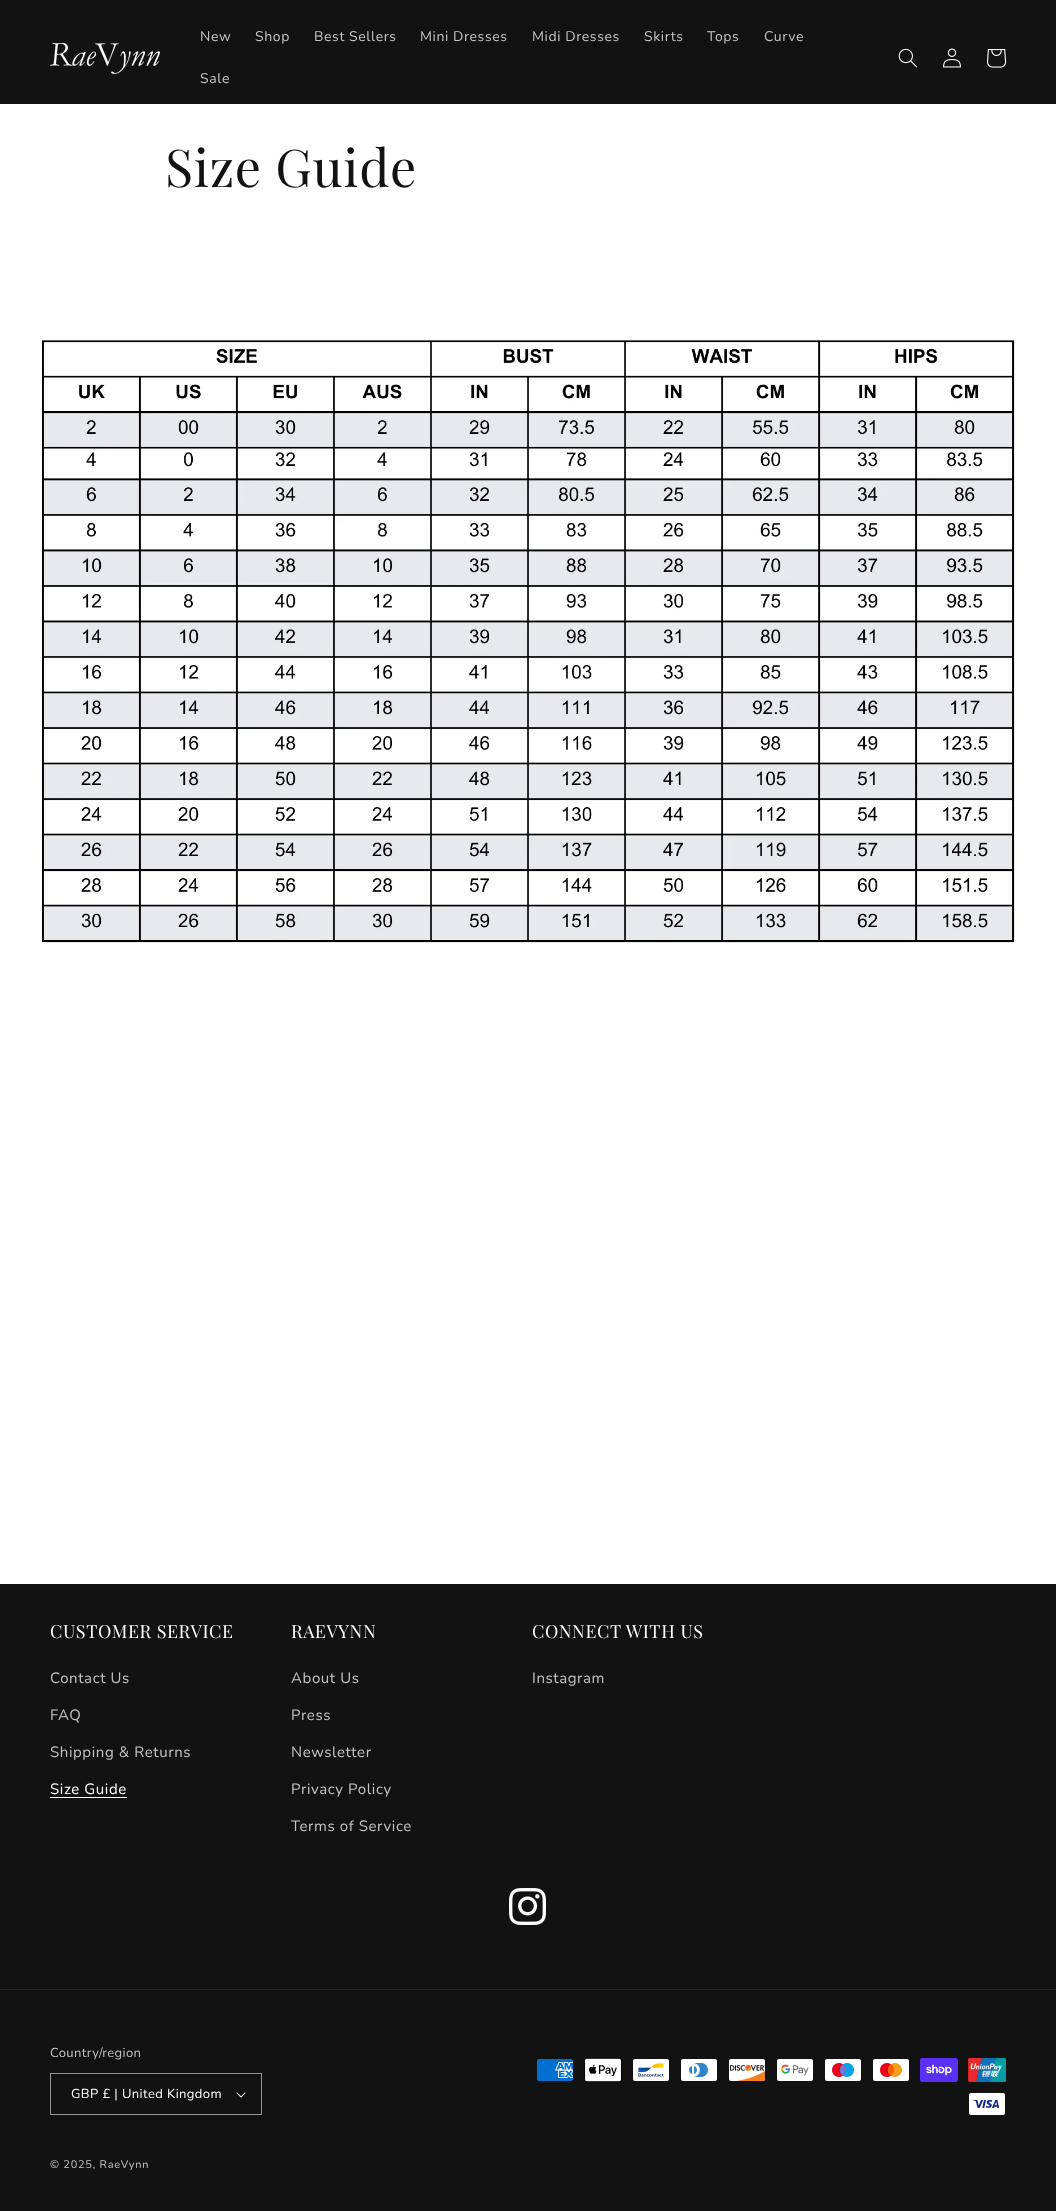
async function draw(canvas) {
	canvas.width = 1056;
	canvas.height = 2211;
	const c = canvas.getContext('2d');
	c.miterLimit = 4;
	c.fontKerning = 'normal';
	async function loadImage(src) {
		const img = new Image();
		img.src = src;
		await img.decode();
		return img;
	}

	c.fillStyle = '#fff';
	c.fillRect(0, 0, 1056, 2211);
	c.fillStyle = '#121212';
	c.fillRect(0, 0, 1056, 104);
	c.drawImage(await loadImage('img1.png'), 50, 43, 110, 31);
	c.letterSpacing = '0.6px';
	c.font = '14px Nunito';
	c.fillStyle = '#c4c4c4';
	for (const [text, x, y] of [
		['New', 200, 41],
		['Shop', 255, 41],
		['Best Sellers', 314, 41],
		['Mini Dresses', 420, 41],
		['Midi Dresses', 532, 41],
		['Skirts', 644, 41],
		['Tops', 707, 41],
		['Curve', 764, 41],
		['Sale', 200, 83],
	]) {
		c.fillText(text, x, y);
	}
	c.drawImage(await loadImage('img2.png'), 898, 48, 19, 20);
	c.drawImage(await loadImage('img3.png'), 943, 48, 18, 20);
	c.drawImage(await loadImage('img4.png'), 987, 49, 20, 19);
	c.font = '52px Playfair Display';
	c.fillStyle = '#121212';
	c.fillText('Size Guide', 165, 187);
	c.drawImage(await loadImage('img5.png'), 41, 340, 974, 603);
	c.fillRect(0, 1584, 1056, 627);
	c.font = '18px Playfair Display';
	c.fillStyle = '#fff';
	c.fillText('CUSTOMER SERVICE', 50, 1638);
	c.font = '15px Nunito';
	c.fillStyle = '#c4c4c4';
	for (const [text, x, y] of [
		['Contact Us', 50, 1683],
		['FAQ', 50, 1720],
		['Shipping & Returns', 50, 1757],
	]) {
		c.fillText(text, x, y);
	}
	c.fillStyle = '#fff';
	c.fillText('Size Guide', 50, 1794);
	c.fillRect(50, 1797, 77, 1);
	c.font = '18px Playfair Display';
	c.fillText('RAEVYNN', 291, 1638);
	c.font = '15px Nunito';
	c.fillStyle = '#c4c4c4';
	for (const [text, x, y] of [
		['About Us', 291, 1683],
		['Press', 291, 1720],
		['Newsletter', 291, 1757],
		['Privacy Policy', 291, 1794],
		['Terms of Service', 291, 1831],
	]) {
		c.fillText(text, x, y);
	}
	c.font = '18px Playfair Display';
	c.fillStyle = '#fff';
	c.fillText('CONNECT WITH US', 532, 1638);
	c.font = '15px Nunito';
	c.fillStyle = '#c4c4c4';
	c.fillText('Instagram', 532, 1683);
	c.drawImage(await loadImage('img6.png'), 509, 1888, 38, 37);
	c.fillStyle = '#252525';
	c.fillRect(0, 1989, 1056, 1);
	c.letterSpacing = '0.4px';
	c.font = '13px Nunito';
	c.fillStyle = '#c4c4c4';
	c.fillText('Country/region', 50, 2057);
	c.drawImage(await loadImage('img7.png'), 236, 2092, 10, 6);
	c.strokeStyle = '#949494';
	c.strokeRect(50.5, 2073.5, 211, 41);
	c.fillStyle = '#fff';
	c.fillText('GBP £ | United Kingdom', 71, 2098);
	c.drawImage(await loadImage('img8.png'), 537, 2059, 36, 22);
	c.drawImage(await loadImage('img9.png'), 584, 2058, 38, 24);
	c.drawImage(await loadImage('img10.png'), 633, 2059, 36, 22);
	c.drawImage(await loadImage('img11.png'), 681, 2059, 36, 22);
	c.drawImage(await loadImage('img12.png'), 729, 2059, 36, 22);
	c.drawImage(await loadImage('img13.png'), 777, 2059, 36, 22);
	c.drawImage(await loadImage('img14.png'), 825, 2059, 36, 22);
	c.drawImage(await loadImage('img15.png'), 873, 2059, 36, 22);
	c.drawImage(await loadImage('img16.png'), 920, 2058, 38, 24);
	c.drawImage(await loadImage('img17.png'), 968, 2058, 38, 24);
	c.drawImage(await loadImage('img18.png'), 969, 2093, 36, 22);
	c.letterSpacing = '0.75px';
	c.font = '11px Nunito';
	c.fillStyle = '#c4c4c4';
	c.fillText('© 2025, RaeVynn', 50, 2168);
}

draw(document.querySelector('canvas'));
